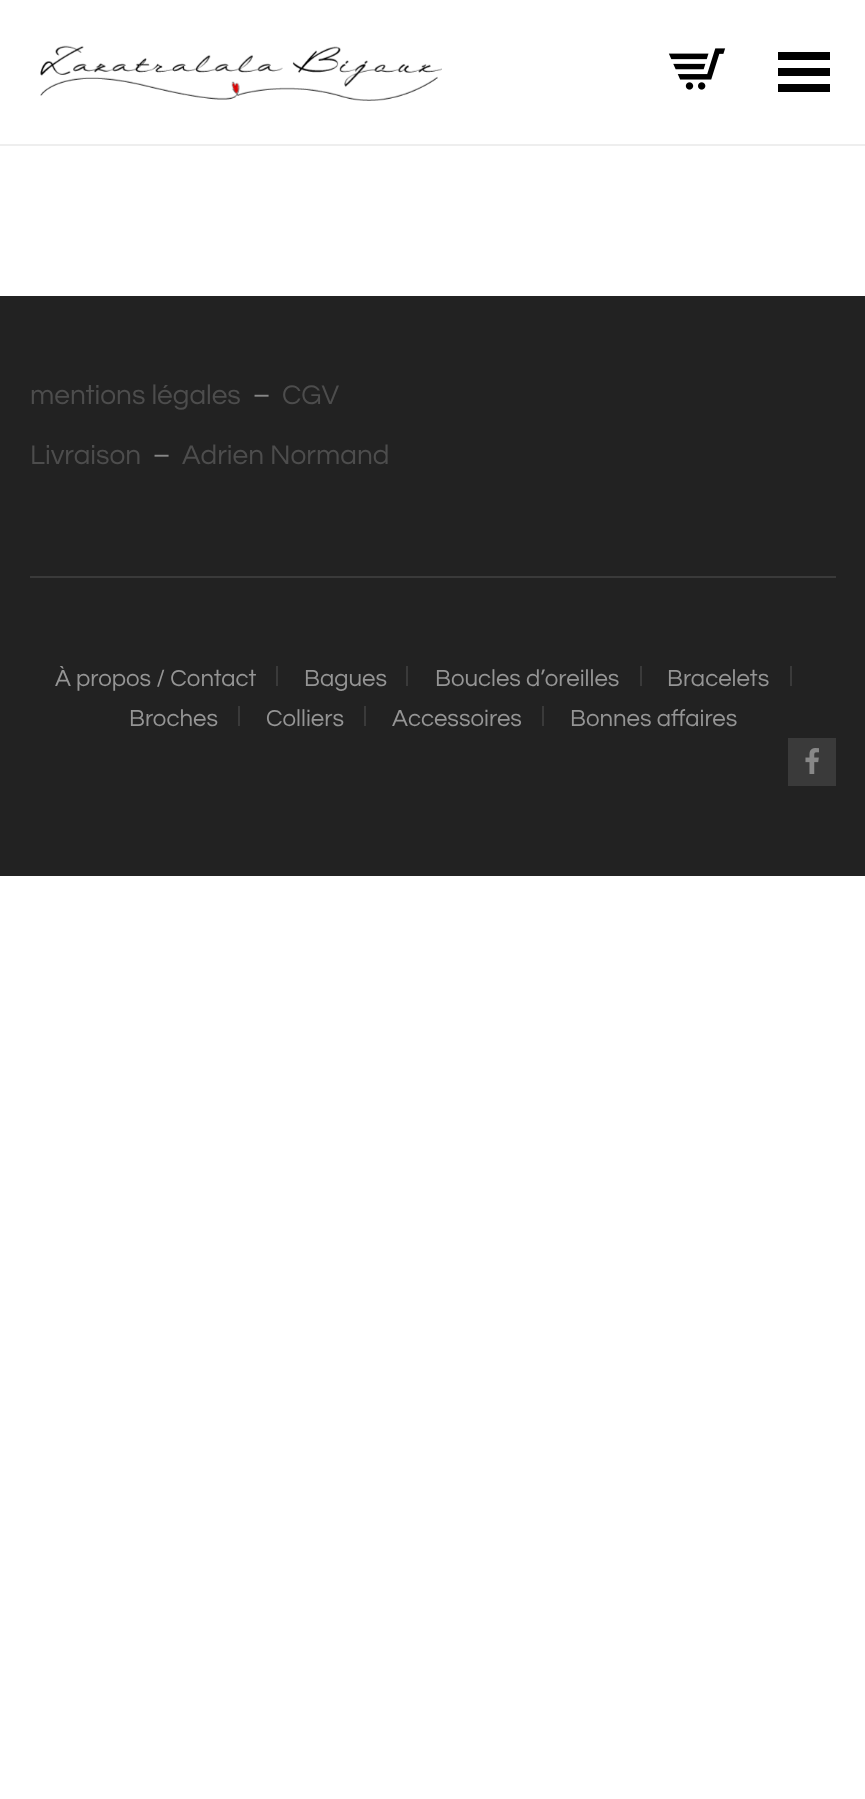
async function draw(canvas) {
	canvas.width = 865;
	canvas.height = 1799;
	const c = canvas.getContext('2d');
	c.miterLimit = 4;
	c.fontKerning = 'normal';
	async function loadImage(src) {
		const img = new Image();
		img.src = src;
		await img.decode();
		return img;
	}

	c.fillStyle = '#fff';
	c.fillRect(0, 0, 865, 1799);
	c.fillStyle = '#eee';
	c.fillRect(0, 144, 865, 2);
	c.drawImage(await loadImage('img1.png'), 40, 45, 402, 56);
	c.drawImage(await loadImage('img2.png'), 668, 48, 58, 42);
	c.fillStyle = '#000';
	c.beginPath();
	c.moveTo(830, 60);
	c.lineTo(778, 60);
	c.lineTo(778, 52);
	c.lineTo(830, 52);
	c.closePath();
	c.moveTo(830, 68);
	c.lineTo(778, 68);
	c.lineTo(778, 76);
	c.lineTo(830, 76);
	c.closePath();
	c.moveTo(830, 84);
	c.lineTo(778, 84);
	c.lineTo(778, 92);
	c.lineTo(830, 92);
	c.closePath();
	c.fill();
	c.fillStyle = '#222';
	c.fillRect(0, 296, 865, 580);
	c.font = '28px Questrial';
	c.fillStyle = '#4d4d4d';
	c.fillText('mentions légales', 30, 404);
	c.fillStyle = '#888';
	c.fillText('–', 253, 404);
	c.fillStyle = '#4d4d4d';
	c.fillText('CGV', 282, 404);
	c.fillText('Livraison', 30, 464);
	c.fillStyle = '#888';
	c.fillText('–', 153, 464);
	c.fillStyle = '#4d4d4d';
	c.fillText('Adrien Normand', 182, 464);
	c.fillStyle = '#3a3a3a';
	c.fillRect(30, 576, 806, 2);
	c.font = '24px Questrial';
	c.fillStyle = '#959595';
	c.fillText('À propos / Contact', 55, 686);
	c.fillStyle = '#3a3a3a';
	c.fillRect(276, 666, 2, 20);
	c.fillStyle = '#959595';
	c.fillText('Bagues', 304, 686);
	c.fillStyle = '#3a3a3a';
	c.fillRect(406, 666, 2, 20);
	c.fillStyle = '#959595';
	c.fillText('Boucles d’oreilles', 435, 686);
	c.fillStyle = '#3a3a3a';
	c.fillRect(640, 666, 2, 20);
	c.fillStyle = '#959595';
	c.fillText('Bracelets', 667, 686);
	c.fillStyle = '#3a3a3a';
	c.fillRect(790, 666, 2, 20);
	c.fillStyle = '#959595';
	c.fillText('Broches', 129, 726);
	c.fillStyle = '#3a3a3a';
	c.fillRect(238, 706, 2, 20);
	c.fillStyle = '#959595';
	c.fillText('Colliers', 266, 726);
	c.fillStyle = '#3a3a3a';
	c.fillRect(364, 706, 2, 20);
	c.fillStyle = '#959595';
	c.fillText('Accessoires', 392, 726);
	c.fillStyle = '#3a3a3a';
	c.fillRect(542, 706, 2, 20);
	c.fillStyle = '#959595';
	c.fillText('Bonnes affaires', 570, 726);
	c.fillStyle = '#3a3a3a';
	c.fillRect(788, 738, 48, 48);
	c.drawImage(await loadImage('img3.png'), 805, 748, 14, 26);
}

draw(document.querySelector('canvas'));
